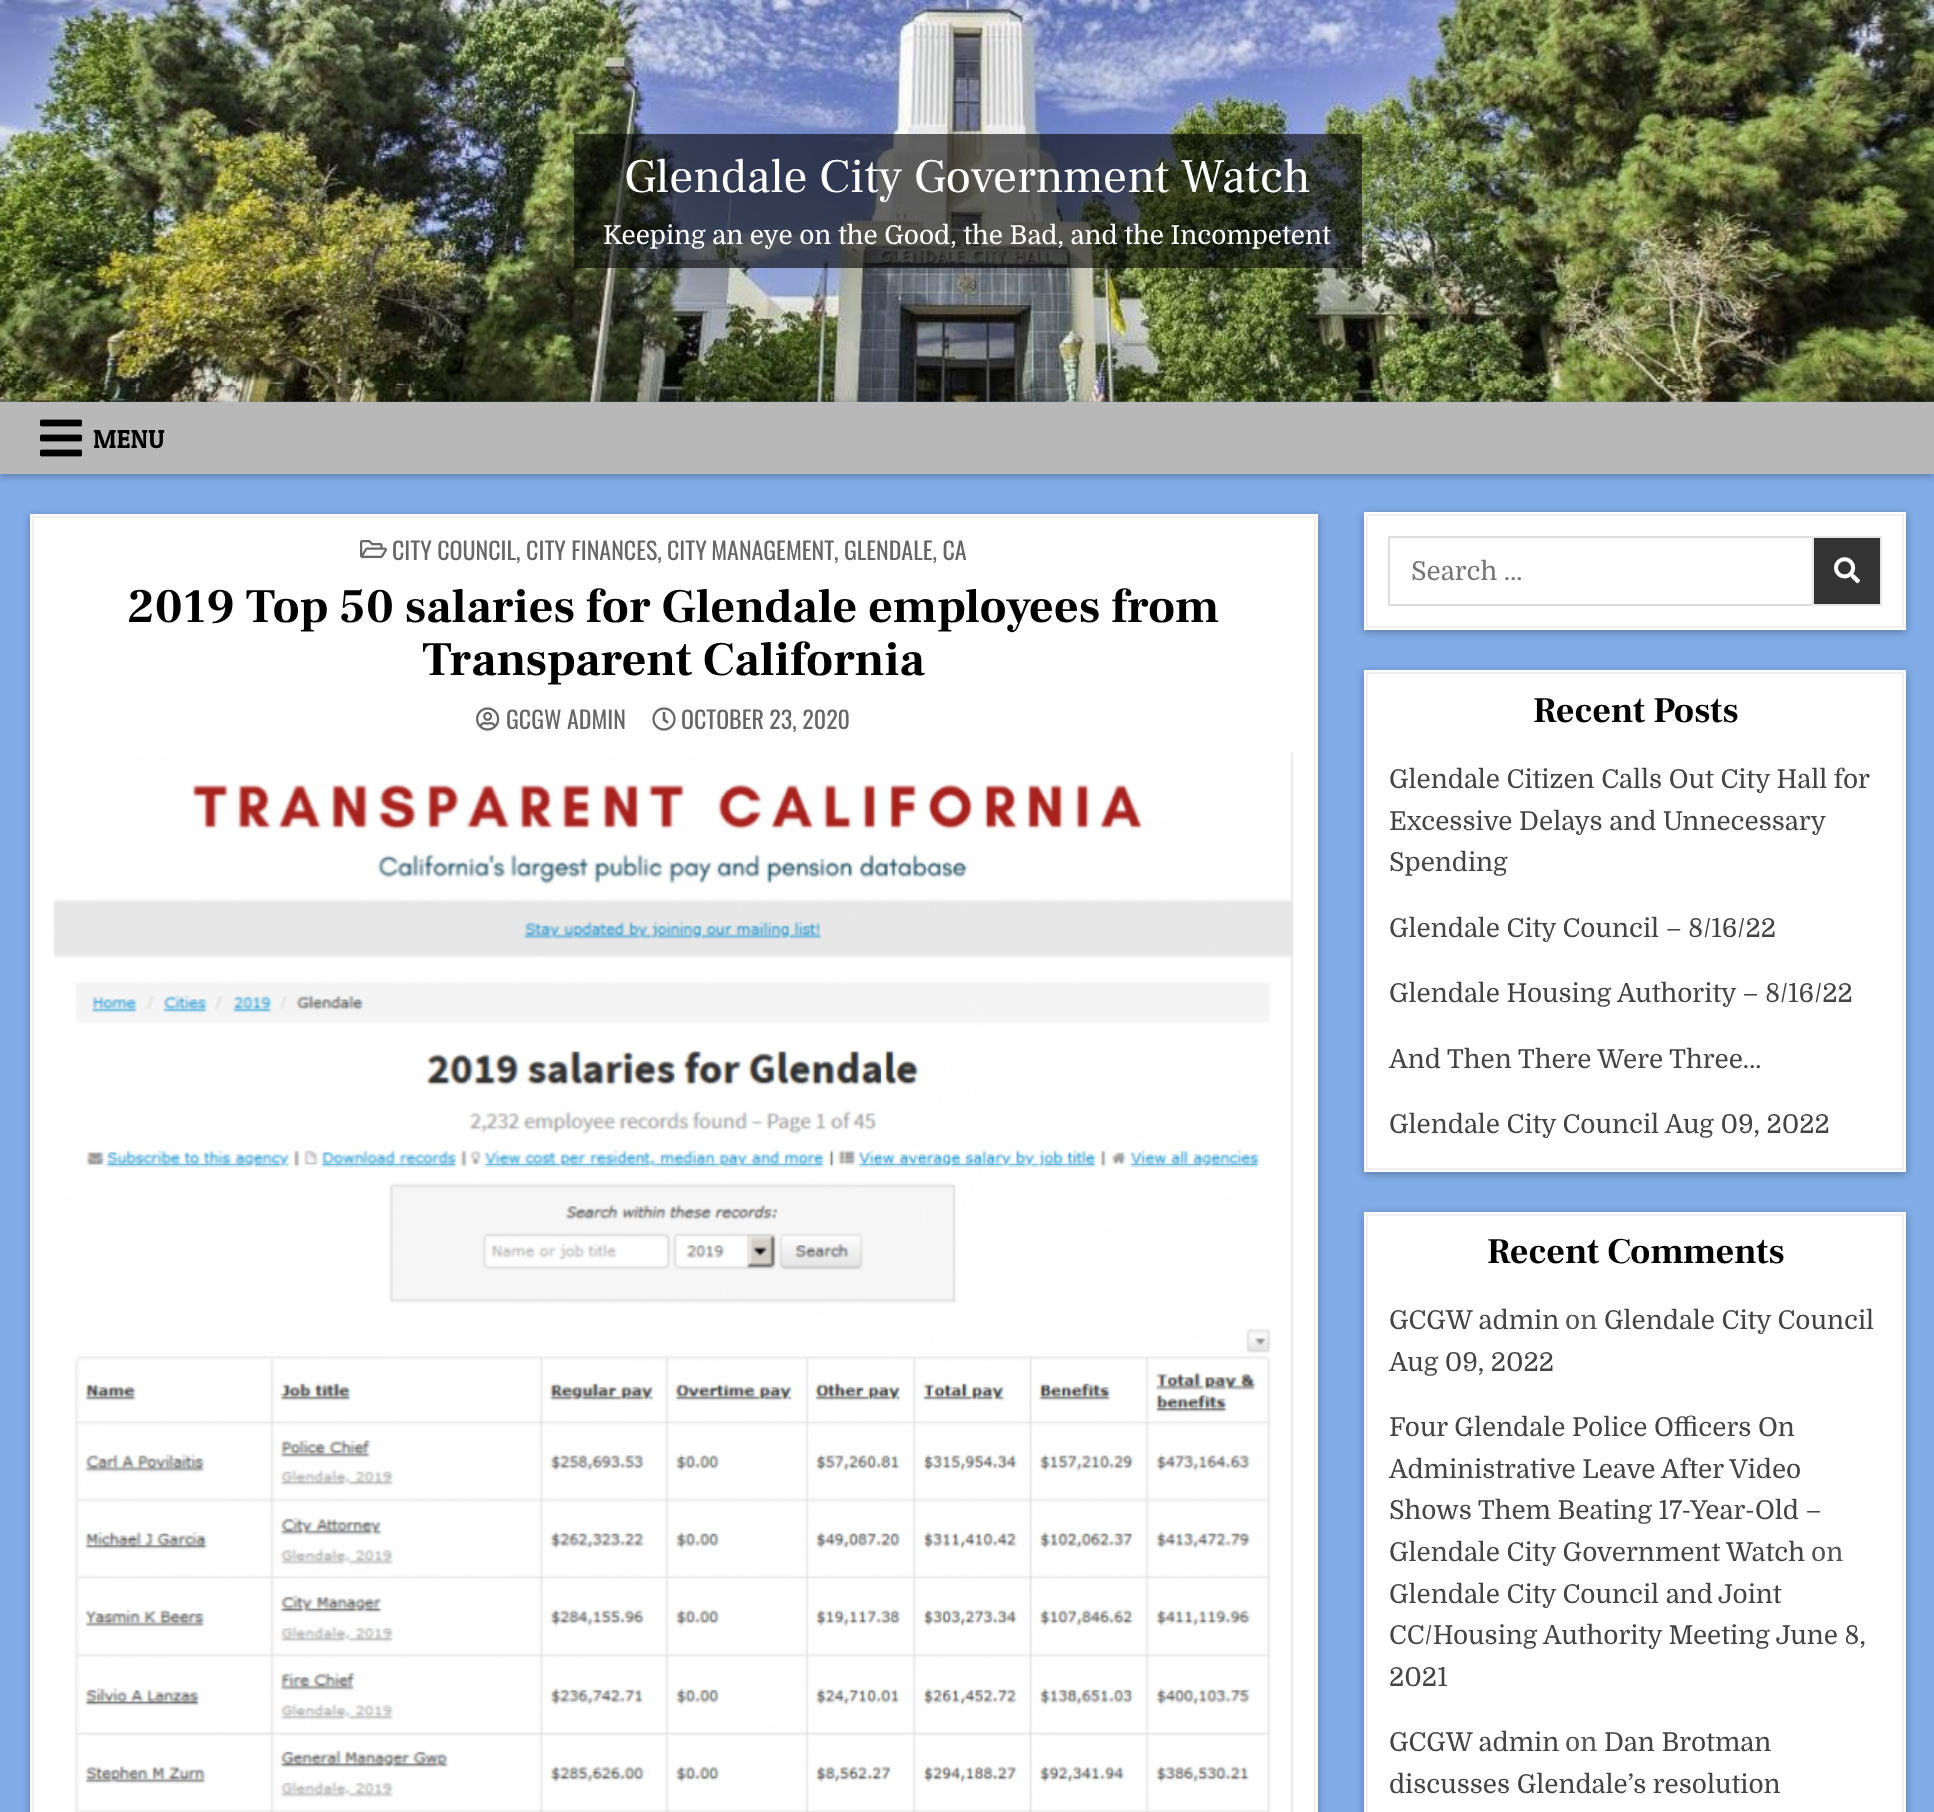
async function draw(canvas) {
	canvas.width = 1934;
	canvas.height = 1812;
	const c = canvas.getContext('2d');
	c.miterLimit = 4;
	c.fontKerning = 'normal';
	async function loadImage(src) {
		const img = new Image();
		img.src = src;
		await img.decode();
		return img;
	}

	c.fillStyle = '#81ace8';
	c.fillRect(0, 0, 1934, 1812);
	c.drawImage(await loadImage('img1.png'), 0, 0, 1934, 402);
	c.fillStyle = '#00000099';
	c.fillRect(574, 134, 788, 134);
	c.font = '48px Frank Ruhl Libre';
	c.fillStyle = '#fff';
	c.fillText('Glendale City Government Watch', 624, 192);
	c.font = '26px Domine';
	c.fillText('Keeping an eye on the Good, the Bad, and the Incompetent', 603, 244);
	c.fillStyle = '#0000004d';
	c.filter = 'blur(4px)';
	c.beginPath();
	c.rect(0, 404, 1934, 72);
	c.fill();
	c.filter = 'none';
	c.fillStyle = '#b8b8b8';
	c.fillRect(0, 402, 1934, 72);
	c.drawImage(await loadImage('img2.png'), 40, 419, 42, 38);
	c.font = '26px Patua One';
	c.fillStyle = '#000';
	c.fillText('MENU', 93, 448);
	c.fillStyle = '#0000004d';
	c.filter = 'blur(4px)';
	c.beginPath();
	c.rect(30, 516, 1288, 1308);
	c.fill();
	c.filter = 'none';
	c.fillStyle = '#fff';
	c.fillRect(30, 514, 1288, 1298);
	c.strokeStyle = '#efefef';
	c.lineWidth = 2;
	c.strokeRect(33, 517, 1282, 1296);
	c.drawImage(await loadImage('img3.png'), 360, 540, 27, 18);
	c.font = '24px Oswald';
	c.fillStyle = '#666';
	c.fillText('CITY COUNCIL, CITY FINANCES,', 392, 560);
	c.wordSpacing = '-1px';
	c.fillText('CITY MANAGEMENT', 667, 560);
	c.wordSpacing = '0px';
	c.fillText(', GLENDALE, CA', 834, 560);
	c.font = 'bold 48px Frank Ruhl Libre';
	c.fillStyle = '#000';
	c.fillText('2019 Top 50 salaries for Glendale employees from', 127, 622);
	c.fillText('Transparent California', 422, 675);
	c.drawImage(await loadImage('img4.png'), 476, 707, 24, 24);
	c.font = '24px Oswald';
	c.fillStyle = '#666';
	c.fillText('GCGW ADMIN', 506, 729);
	c.drawImage(await loadImage('img5.png'), 652, 707, 24, 24);
	c.fillText('OCTOBER 23, 2020', 681, 729);
	c.drawImage(await loadImage('img6.png'), 53, 751, 1241, 1061);
	c.fillStyle = '#0000004d';
	c.filter = 'blur(4px)';
	c.beginPath();
	c.rect(1364, 514, 542, 118);
	c.fill();
	c.filter = 'none';
	c.fillStyle = '#fff';
	c.fillRect(1364, 512, 542, 118);
	c.strokeRect(1367, 515, 536, 112);
	c.strokeStyle = '#ddd';
	c.strokeRect(1389, 537, 492, 68);
	c.font = '26px Domine';
	c.fillStyle = '#757575';
	c.fillText('Search …', 1411, 580);
	c.fillStyle = '#333';
	c.beginPath();
	c.rect(1813, 537, 68, 68);
	c.fill();
	c.strokeStyle = '#e6e6e6';
	c.stroke();
	c.drawImage(await loadImage('img7.png'), 1834, 557, 26, 27);
	c.fillStyle = '#0000004d';
	c.filter = 'blur(4px)';
	c.beginPath();
	c.rect(1364, 672, 542, 502);
	c.fill();
	c.filter = 'none';
	c.fillStyle = '#fff';
	c.fillRect(1364, 670, 542, 502);
	c.strokeStyle = '#efefef';
	c.strokeRect(1367, 673, 536, 496);
	c.font = 'bold 36px Frank Ruhl Libre';
	c.fillStyle = '#000';
	c.fillText('Recent Posts', 1533, 722);
	c.font = '26px Domine';
	c.fillStyle = '#444';
	for (const [text, x, y] of [
		['Glendale Citizen Calls Out City Hall for', 1389, 788],
		['Excessive Delays and Unnecessary', 1389, 830],
		['Spending', 1389, 871],
		['Glendale City Council – 8/16/22', 1389, 937],
		['Glendale Housing Authority – 8/16/22', 1389, 1002],
		['And Then There Were Three…', 1389, 1068],
		['Glendale City Council Aug 09, 2022', 1389, 1133],
	]) {
		c.fillText(text, x, y);
	}
	c.fillStyle = '#0000004d';
	c.filter = 'blur(4px)';
	c.beginPath();
	c.rect(1364, 1214, 542, 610);
	c.fill();
	c.filter = 'none';
	c.fillStyle = '#fff';
	c.fillRect(1364, 1212, 542, 600);
	c.strokeRect(1367, 1215, 536, 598);
	c.font = 'bold 36px Frank Ruhl Libre';
	c.fillStyle = '#000';
	c.fillText('Recent Comments', 1487, 1263);
	c.font = '26px Domine';
	c.fillStyle = '#444';
	c.fillText('GCGW admin', 1389, 1329);
	c.fillStyle = '#555';
	c.fillText('on', 1565, 1329);
	c.fillStyle = '#444';
	for (const [text, x, y] of [
		['Glendale City Council', 1604, 1329],
		['Aug 09, 2022', 1389, 1371],
		['Four Glendale Police Officers On', 1389, 1436],
		['Administrative Leave After Video', 1389, 1478],
		['Shows Them Beating 17-Year-Old –', 1389, 1519],
		['Glendale City Government Watch', 1389, 1561],
	]) {
		c.fillText(text, x, y);
	}
	c.fillStyle = '#555';
	c.fillText('on', 1811, 1561);
	c.fillStyle = '#444';
	for (const [text, x, y] of [
		['Glendale City Council and', 1389, 1603],
		['Joint', 1718, 1603],
		['CC/Housing Authority Meeting June 8,', 1389, 1644],
		['2021', 1389, 1686],
		['GCGW admin', 1389, 1751],
	]) {
		c.fillText(text, x, y);
	}
	c.fillStyle = '#555';
	c.fillText('on', 1565, 1751);
	c.fillStyle = '#444';
	c.fillText('Dan Brotman', 1604, 1751);
	c.fillText('discusses Glendale’s resolution', 1389, 1793);
}

draw(document.querySelector('canvas'));
